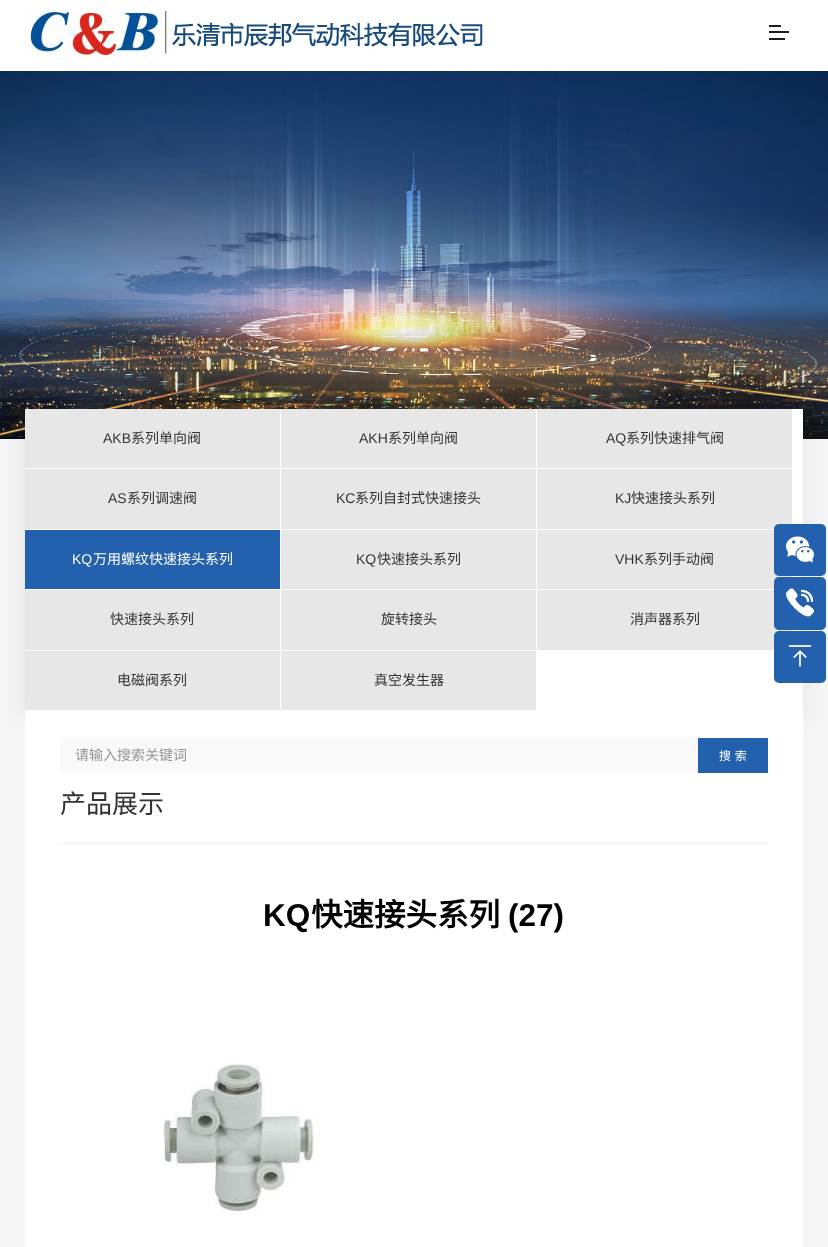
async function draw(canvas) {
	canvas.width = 828;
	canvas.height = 1247;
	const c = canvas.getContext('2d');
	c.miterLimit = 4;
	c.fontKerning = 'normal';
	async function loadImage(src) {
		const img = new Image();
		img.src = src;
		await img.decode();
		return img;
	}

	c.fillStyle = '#fff';
	c.fillRect(0, 0, 828, 1247);
	c.drawImage(await loadImage('img1.png'), 29, 11, 457, 45);
	for (const [x, y, w, h, color] of [
		[769, 25, 12, 2, '#1d1d1d'],
		[769, 31, 20, 2, '#1d1d1d'],
		[769, 38, 16, 2, '#1d1d1d'],
		[0, 439, 828, 808, '#f5f5f5'],
	]) {
		c.fillStyle = color;
		c.fillRect(x, y, w, h);
	}
	c.drawImage(await loadImage('img2.png'), 0, 71, 828, 368);
	c.fillStyle = '#fff';
	c.fillRect(537, 409, 266, 302);
	c.save();
	c.beginPath();
	c.moveTo(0, 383);
	c.lineTo(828, 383);
	c.lineTo(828, 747);
	c.lineTo(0, 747);
	c.closePath();
	c.moveTo(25, 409);
	c.lineTo(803, 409);
	c.lineTo(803, 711);
	c.lineTo(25, 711);
	c.closePath();
	c.clip('evenodd');
	c.fillStyle = '#00000014';
	c.filter = 'blur(10px)';
	c.beginPath();
	c.rect(25, 414, 778, 302);
	c.fill();
	c.filter = 'none';
	c.restore();
	for (const [x, y, w, h, color] of [
		[25, 409, 255, 59, '#e7e7e7'],
		[280, 409, 1, 302, '#fff'],
		[25, 468, 256, 1, '#fff'],
	]) {
		c.fillStyle = color;
		c.fillRect(x, y, w, h);
	}
	c.font = '14px Liberation Sans';
	c.fillStyle = '#333';
	c.fillText('AKB', 103, 443);
	c.font = '14px Noto Sans CJK SC';
	c.fillText('系列单向阀', 131, 443);
	for (const [x, y, w, h, color] of [
		[281, 409, 255, 59, '#e7e7e7'],
		[536, 409, 1, 302, '#fff'],
		[281, 468, 256, 1, '#fff'],
	]) {
		c.fillStyle = color;
		c.fillRect(x, y, w, h);
	}
	c.font = '14px Liberation Sans';
	c.fillStyle = '#333';
	c.fillText('AKH', 359, 443);
	c.font = '14px Noto Sans CJK SC';
	c.fillText('系列单向阀', 388, 443);
	c.fillStyle = '#e7e7e7';
	c.fillRect(537, 409, 255, 59);
	c.font = '14px Liberation Sans';
	c.fillStyle = '#333';
	c.fillText('AQ', 606, 443);
	c.font = '14px Noto Sans CJK SC';
	c.fillText('系列快速排气阀', 626, 443);
	c.fillStyle = '#e7e7e7';
	c.fillRect(25, 469, 255, 60);
	c.fillStyle = '#fff';
	c.fillRect(25, 529, 512, 1);
	c.font = '14px Liberation Sans';
	c.fillStyle = '#333';
	c.fillText('AS', 108, 503);
	c.font = '14px Noto Sans CJK SC';
	c.fillText('系列调速阀', 127, 503);
	c.fillStyle = '#e7e7e7';
	c.fillRect(281, 469, 255, 60);
	c.font = '14px Liberation Sans';
	c.fillStyle = '#333';
	c.fillText('KC', 336, 503);
	c.font = '14px Noto Sans CJK SC';
	c.fillText('系列自封式快速接头', 355, 503);
	c.fillStyle = '#e7e7e7';
	c.fillRect(537, 469, 255, 60);
	c.font = '14px Liberation Sans';
	c.fillStyle = '#333';
	c.fillText('KJ', 615, 503);
	c.font = '14px Noto Sans CJK SC';
	c.fillText('快速接头系列', 631, 503);
	c.fillStyle = '#fff';
	c.fillRect(25, 589, 512, 1);
	c.fillStyle = '#2361ae';
	c.fillRect(25, 530, 255, 59);
	c.font = '14px Liberation Sans';
	c.fillStyle = '#fff';
	c.fillText('KQ', 72, 564);
	c.font = '14px Noto Sans CJK SC';
	c.fillText('万用螺纹快速接头系列', 93, 564);
	c.fillStyle = '#e7e7e7';
	c.fillRect(281, 530, 255, 59);
	c.font = '14px Liberation Sans';
	c.fillStyle = '#333';
	c.fillText('KQ', 356, 564);
	c.font = '14px Noto Sans CJK SC';
	c.fillText('快速接头系列', 377, 564);
	c.fillStyle = '#e7e7e7';
	c.fillRect(537, 530, 255, 59);
	c.font = '14px Liberation Sans';
	c.fillStyle = '#333';
	c.fillText('VHK', 615, 564);
	c.font = '14px Noto Sans CJK SC';
	c.fillText('系列手动阀', 644, 564);
	c.fillStyle = '#e7e7e7';
	c.fillRect(25, 590, 255, 60);
	c.fillStyle = '#fff';
	c.fillRect(25, 650, 512, 1);
	c.fillStyle = '#333';
	c.fillText('快速接头系列', 110, 624);
	c.fillStyle = '#e7e7e7';
	c.fillRect(281, 590, 255, 60);
	c.fillStyle = '#333';
	c.fillText('旋转接头', 381, 624);
	c.fillStyle = '#e7e7e7';
	c.fillRect(537, 590, 255, 60);
	c.fillStyle = '#333';
	c.fillText('消声器系列', 630, 624);
	c.fillStyle = '#e7e7e7';
	c.fillRect(25, 651, 255, 59);
	c.fillStyle = '#fff';
	c.fillRect(25, 710, 512, 1);
	c.fillStyle = '#333';
	c.fillText('电磁阀系列', 117, 685);
	c.fillStyle = '#e7e7e7';
	c.fillRect(281, 651, 255, 59);
	c.fillStyle = '#333';
	c.fillText('真空发生器', 374, 685);
	for (const [x, y, w, h, color] of [
		[25, 711, 778, 536, '#fff'],
		[60, 843, 708, 1, '#f0f0f0'],
		[60, 738, 638, 35, '#f9f9f9'],
	]) {
		c.fillStyle = color;
		c.fillRect(x, y, w, h);
	}
	c.fillStyle = '#949494';
	c.fillText('请输入搜索关键词', 75, 760);
	c.fillStyle = '#2361ae';
	c.fillRect(698, 738, 70, 35);
	c.wordSpacing = '1px';
	c.font = '12px Noto Sans CJK SC';
	c.fillStyle = '#fff';
	c.fillText('搜 索', 719, 760);
	c.wordSpacing = '0px';
	c.font = '26px Noto Sans CJK SC';
	c.fillStyle = '#333';
	c.fillText('产品展示', 60, 813);
	c.font = 'bold 31.5px Liberation Sans';
	c.fillStyle = '#000';
	c.fillText('KQ', 263, 926);
	c.font = 'bold 31.5px Noto Sans CJK SC';
	c.fillText('快速接头系列', 311, 926);
	c.font = 'bold 31.5px Liberation Sans';
	c.fillText('(27)', 508, 926);
	c.drawImage(await loadImage('img3.png'), 163, 1064, 153, 152);
	c.fillStyle = '#2361ae';
	c.beginPath();
	c.roundRect(774, 524, 52, 52, 5);
	c.fill();
	c.drawImage(await loadImage('img4.png'), 786, 536, 28, 27);
	c.beginPath();
	c.roundRect(774, 577, 52, 53, 5);
	c.fill();
	c.drawImage(await loadImage('img5.png'), 786, 588, 28, 29);
	c.beginPath();
	c.roundRect(774, 631, 52, 52, 5);
	c.fill();
	c.drawImage(await loadImage('img6.png'), 788, 645, 24, 22);
}

draw(document.querySelector('canvas'));
